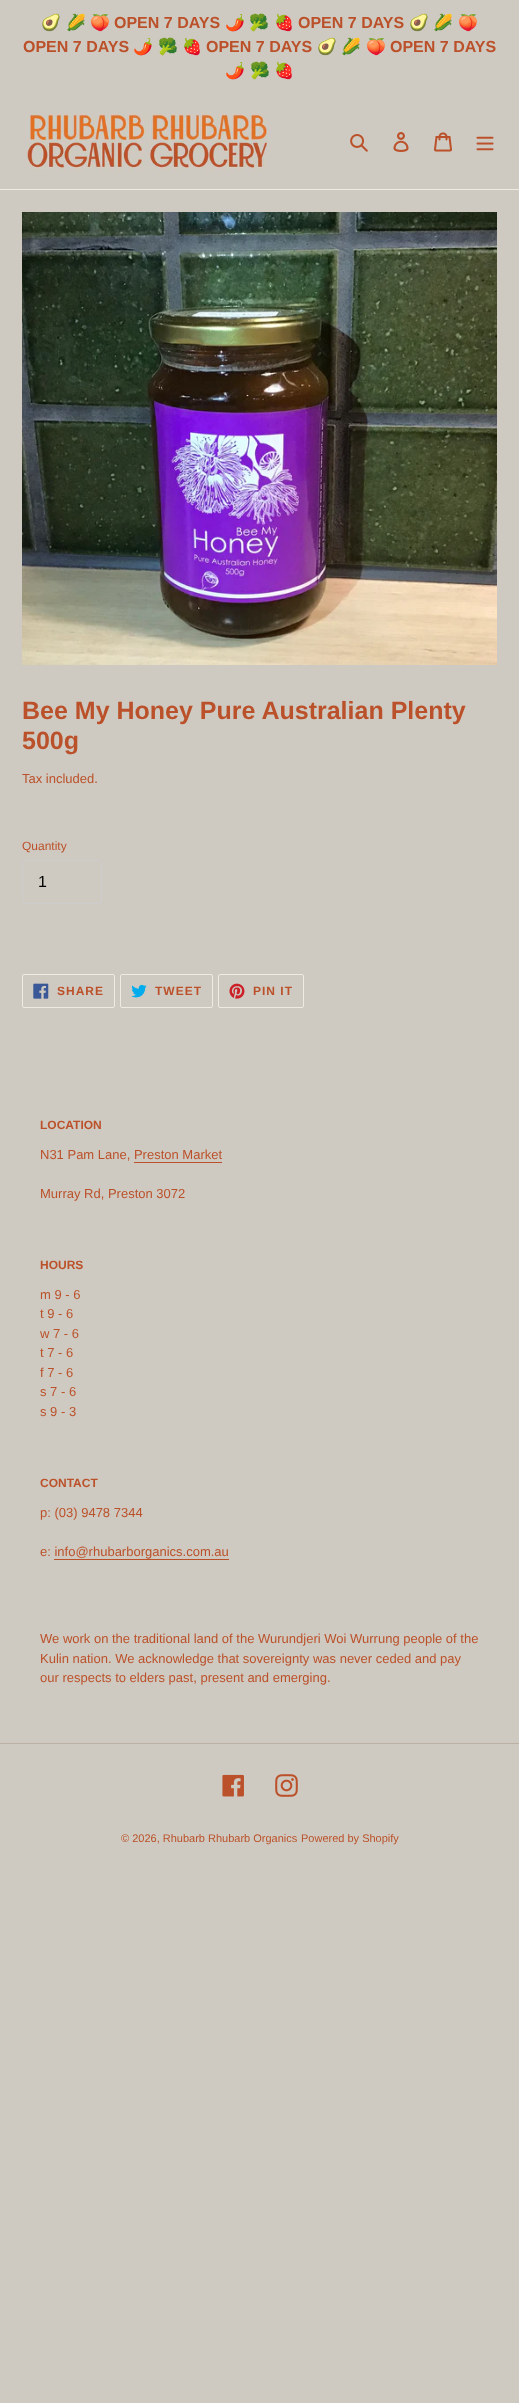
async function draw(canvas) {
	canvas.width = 519;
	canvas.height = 2403;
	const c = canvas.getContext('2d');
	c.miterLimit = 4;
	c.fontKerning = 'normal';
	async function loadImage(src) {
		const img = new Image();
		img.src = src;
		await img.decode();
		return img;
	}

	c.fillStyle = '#cfcac1';
	c.fillRect(0, 0, 519, 2403);
	c.font = 'bold 16px Noto Color Emoji';
	c.fillStyle = '#bb512a';
	for (const [text, x, y] of [
		['🥑', 41, 28],
		['🌽', 66, 28],
		['🍑', 90, 28],
	]) {
		c.fillText(text, x, y);
	}
	c.font = 'bold 16px Liberation Sans';
	c.fillText('OPEN 7 DAYS', 114, 28);
	c.font = 'bold 16px Noto Color Emoji';
	for (const [text, x, y] of [
		['🌶', 225, 28],
		['🥦', 249, 28],
		['🍓', 274, 28],
	]) {
		c.fillText(text, x, y);
	}
	c.font = 'bold 16px Liberation Sans';
	c.fillText('OPEN 7 DAYS', 298, 28);
	c.font = 'bold 16px Noto Color Emoji';
	for (const [text, x, y] of [
		['🥑', 409, 28],
		['🌽', 433, 28],
		['🍑', 458, 28],
	]) {
		c.fillText(text, x, y);
	}
	c.font = 'bold 16px Liberation Sans';
	c.fillText('OPEN 7 DAYS', 23, 52);
	c.font = 'bold 16px Noto Color Emoji';
	for (const [text, x, y] of [
		['🌶', 133, 52],
		['🥦', 158, 52],
		['🍓', 182, 52],
	]) {
		c.fillText(text, x, y);
	}
	c.font = 'bold 16px Liberation Sans';
	c.fillText('OPEN 7 DAYS', 206, 52);
	c.font = 'bold 16px Noto Color Emoji';
	for (const [text, x, y] of [
		['🥑', 317, 52],
		['🌽', 341, 52],
		['🍑', 366, 52],
	]) {
		c.fillText(text, x, y);
	}
	c.font = 'bold 16px Liberation Sans';
	c.fillText('OPEN 7 DAYS', 390, 52);
	c.font = 'bold 16px Noto Color Emoji';
	for (const [text, x, y] of [
		['🌶', 225, 76],
		['🥦', 250, 76],
		['🍓', 274, 76],
	]) {
		c.fillText(text, x, y);
	}
	c.fillStyle = '#efeae2';
	c.fillRect(0, 189, 519, 1);
	c.drawImage(await loadImage('img1.png'), 26, 113, 246, 58);
	c.drawImage(await loadImage('img2.png'), 350, 134, 18, 18);
	c.drawImage(await loadImage('img3.png'), 393, 132, 16, 20);
	c.drawImage(await loadImage('img4.png'), 434, 132, 18, 20);
	c.drawImage(await loadImage('img5.png'), 476, 136, 18, 15);
	c.drawImage(await loadImage('img6.png'), 22, 212, 475, 453);
	c.font = 'bold 25px Liberation Sans';
	c.fillStyle = '#bb512a';
	c.fillText('Bee My Honey Pure Australian Plenty', 22, 719);
	c.fillText('500g', 22, 749);
	c.font = '13px Liberation Sans';
	c.fillText('Tax included.', 22, 783);
	c.font = '12px Liberation Sans';
	c.fillText('Quantity', 22, 850);
	c.beginPath();
	c.roundRect(22.5, 860.5, 79, 43, 1.5);
	c.strokeStyle = '#ccc';
	c.stroke();
	c.font = '16px Liberation Sans';
	c.fillStyle = '#000';
	c.fillText('1', 38, 887);
	c.beginPath();
	c.roundRect(22.5, 974.5, 92, 33, 1.5);
	c.strokeStyle = '#efeae2';
	c.stroke();
	c.drawImage(await loadImage('img7.png'), 33, 983, 16, 16);
	c.letterSpacing = '1px';
	c.font = 'bold 12px Liberation Sans';
	c.fillStyle = '#bb512a';
	c.fillText('SHARE', 57, 995);
	c.beginPath();
	c.roundRect(120.5, 974.5, 92, 33, 1.5);
	c.stroke();
	c.drawImage(await loadImage('img8.png'), 131, 984, 16, 14);
	c.fillText('TWEET', 155, 995);
	c.beginPath();
	c.roundRect(218.5, 974.5, 85, 33, 1.5);
	c.stroke();
	c.drawImage(await loadImage('img9.png'), 229, 983, 16, 16);
	c.fillText('PIN IT', 253, 995);
	c.letterSpacing = '0px';
	c.fillText('LOCATION', 40, 1129);
	c.font = '13px Liberation Sans';
	c.fillText('N31 Pam Lane, Preston Market', 40, 1159);
	c.fillRect(134, 1162, 88, 1);
	c.fillText('Murray Rd, Preston 3072', 40, 1198);
	c.font = 'bold 12px Liberation Sans';
	c.fillText('HOURS', 40, 1269);
	c.font = '13px Liberation Sans';
	for (const [text, x, y] of [
		['m 9 - 6', 40, 1299],
		['t 9 - 6', 40, 1318],
		['w 7 - 6', 40, 1338],
		['t 7 - 6', 40, 1357],
		['f 7 - 6', 40, 1377],
		['s 7 - 6', 40, 1396],
		['s 9 - 3', 40, 1416],
	]) {
		c.fillText(text, x, y);
	}
	c.font = 'bold 12px Liberation Sans';
	c.fillText('CONTACT', 40, 1487);
	c.font = '13px Liberation Sans';
	c.fillText('p: (03) 9478 7344', 40, 1517);
	c.fillText('e: info@rhubarborganics.com.au', 40, 1556);
	c.fillRect(54, 1559, 175, 1);
	for (const [text, x, y] of [
		['We work on the traditional land of the Wurundjeri Woi Wurrung people of the', 40, 1643],
		['Kulin nation. We acknowledge that sovereignty was never ceded and pay', 40, 1663],
		['our respects to elders past, present and emerging.', 40, 1682],
	]) {
		c.fillText(text, x, y);
	}
	c.fillStyle = '#bab1a3';
	c.fillRect(0, 1743, 519, 1);
	c.drawImage(await loadImage('img10.png'), 222, 1774, 22, 23);
	c.drawImage(await loadImage('img11.png'), 275, 1774, 23, 23);
	c.font = '11px Liberation Sans';
	c.fillStyle = '#bb512a';
	c.fillText('© 2026, Rhubarb Rhubarb Organics', 121, 1842);
	c.fillText('Powered by Shopify', 301, 1842);
}

draw(document.querySelector('canvas'));
